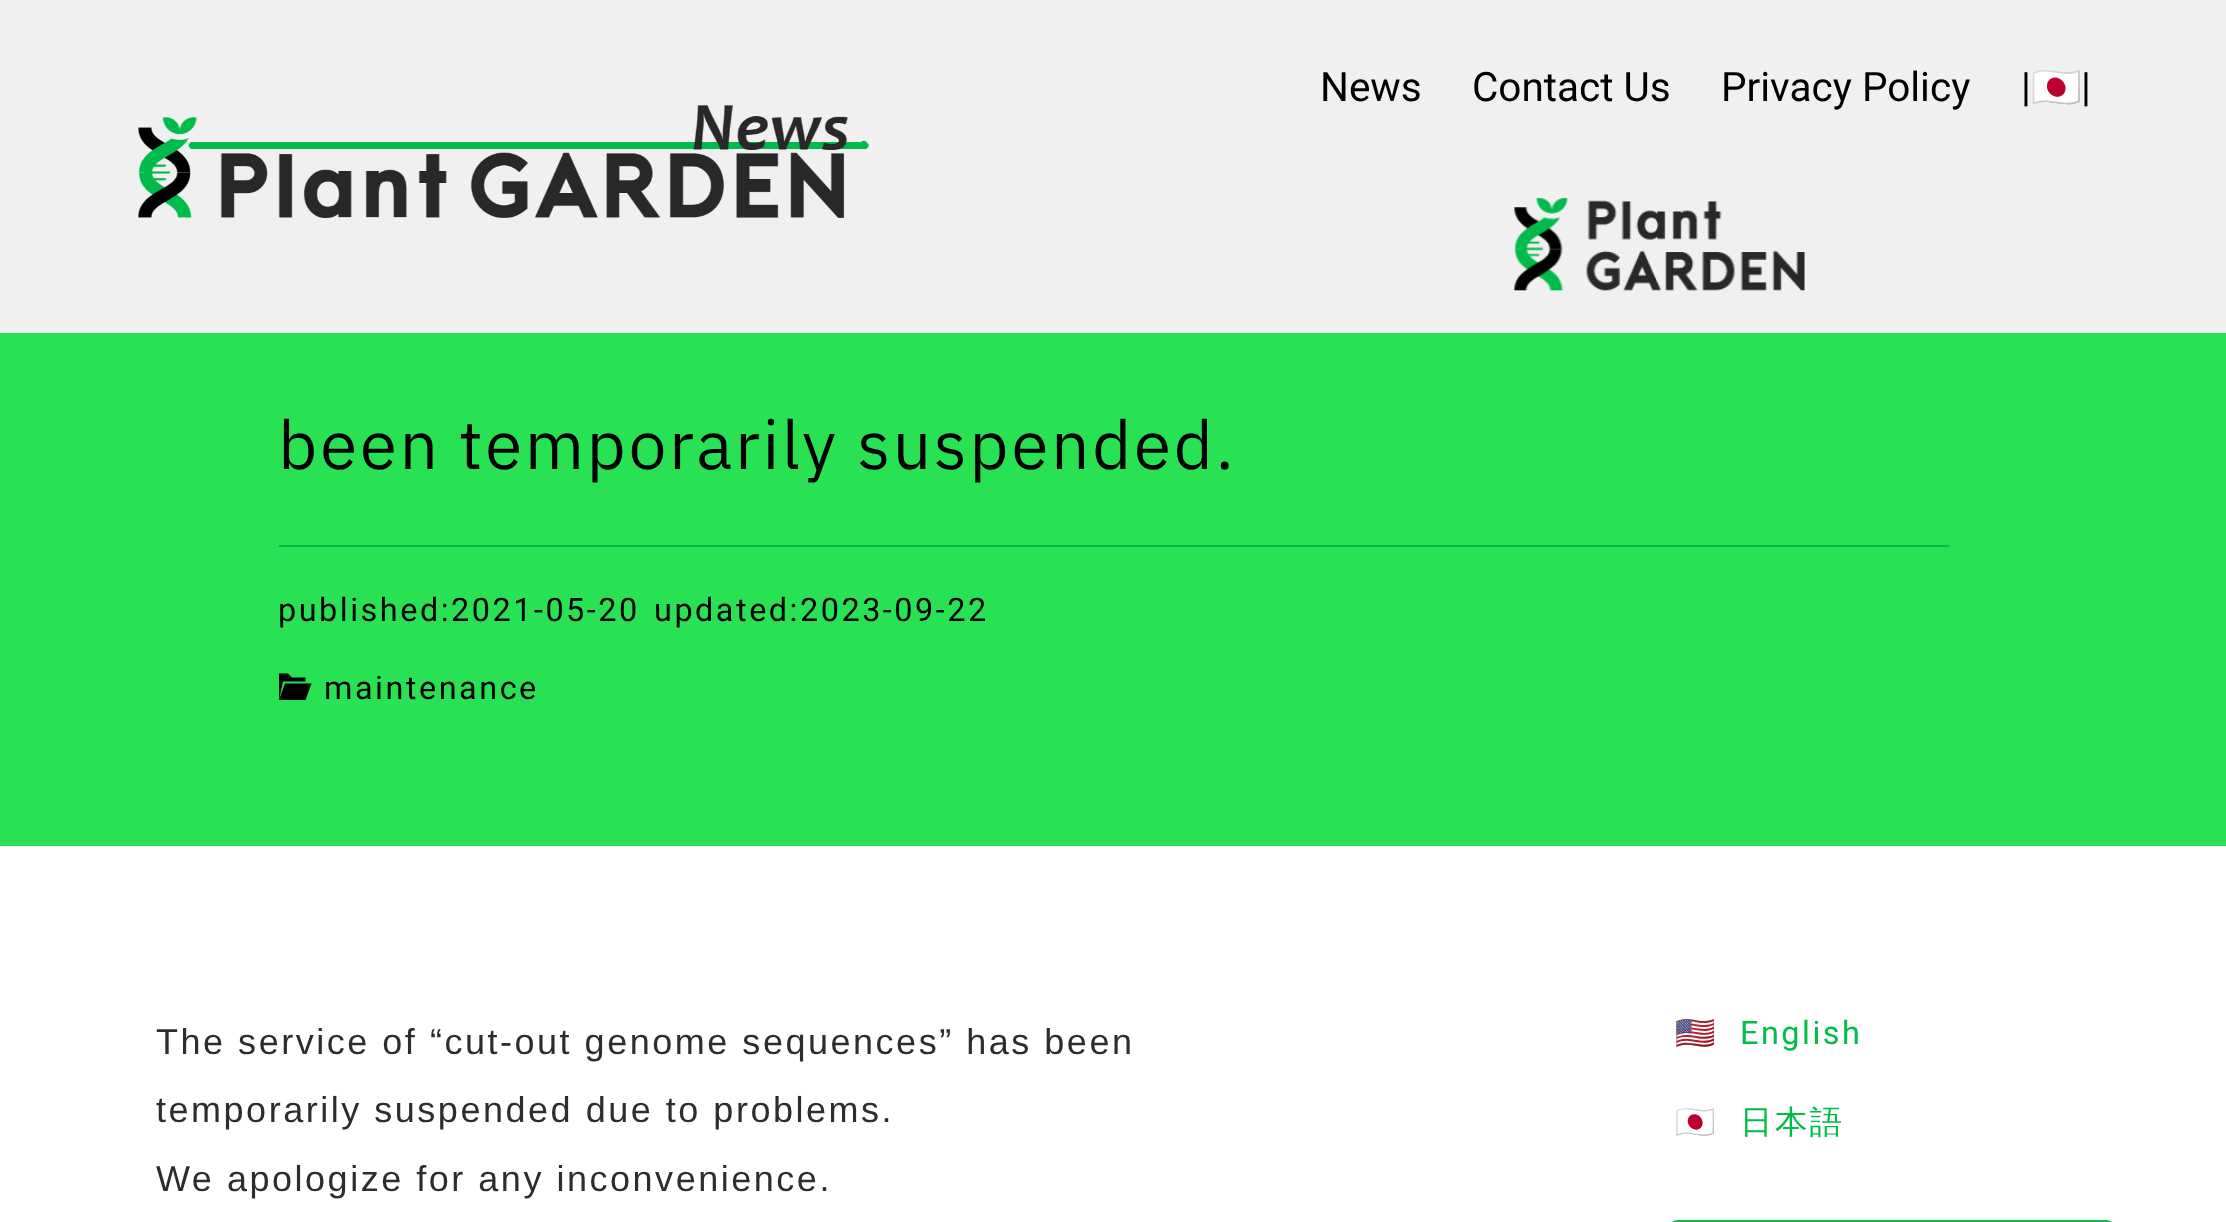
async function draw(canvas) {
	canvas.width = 2226;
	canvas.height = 1222;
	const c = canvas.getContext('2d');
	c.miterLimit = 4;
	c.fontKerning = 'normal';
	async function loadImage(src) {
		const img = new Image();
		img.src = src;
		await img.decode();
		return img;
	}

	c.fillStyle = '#fff';
	c.fillRect(0, 0, 2226, 1222);
	c.fillStyle = '#f0f0f0';
	c.fillRect(0, 0, 2226, 333);
	c.font = '40.5px Roboto';
	c.fillStyle = '#000';
	for (const [text, x, y] of [
		['News', 1320, 101],
		['Contact Us', 1472, 101],
		['Privacy Policy', 1721, 101],
		['|', 2021, 101],
	]) {
		c.fillText(text, x, y);
	}
	c.font = '40.5px Noto Color Emoji';
	c.fillText('🇯🇵', 2031, 101);
	c.font = '40.5px Roboto';
	c.fillText('|', 2081, 101);
	c.drawImage(await loadImage('img1.png'), 1514, 198, 291, 93);
	c.drawImage(await loadImage('img2.png'), 138, 105, 731, 113);
	c.fillStyle = '#28e253';
	c.fillRect(0, 333, 2226, 513);
	c.fillStyle = '#00bd45';
	c.fillRect(279, 545, 1670, 2);
	c.letterSpacing = '2.52px';
	c.font = '64.75px IBM Plex Sans JP';
	c.fillStyle = '#000';
	c.fillText('been temporarily suspended.', 278, 469);
	c.font = '32.4px Roboto';
	for (const [text, x, y] of [
		['published:2021-05-20', 278, 621],
		['updated:2023-09-22', 654, 621],
		['maintenance', 324, 699],
	]) {
		c.fillText(text, x, y);
	}
	c.beginPath();
	c.moveTo(305.5, 700);
	c.lineTo(311.5, 683.5);
	c.lineTo(285, 683.5);
	c.lineTo(279, 700);
	c.closePath();
	c.moveTo(283, 681.5);
	c.lineTo(279, 700);
	c.lineTo(279, 673.5);
	c.lineTo(288, 673.5);
	c.lineTo(292, 677.5);
	c.lineTo(305.5, 677.5);
	c.lineTo(305.5, 681.5);
	c.closePath();
	c.fill();
	c.font = '36px Liberation Sans';
	c.fillStyle = '#2d2d2d';
	for (const [text, x, y] of [
		['The service of “cut-out genome sequences” has been', 156, 1054],
		['temporarily suspended due to problems.', 156, 1122],
		['We apologize for any inconvenience.', 156, 1191],
	]) {
		c.fillText(text, x, y);
	}
	c.font = '32.4px Noto Color Emoji';
	c.fillStyle = '#333';
	c.fillText('🇺🇸', 1675, 1044);
	c.font = '32.4px Roboto';
	c.fillStyle = '#00bd45';
	c.fillText('English', 1740, 1044);
	c.font = '32.4px Noto Color Emoji';
	c.fillStyle = '#333';
	c.fillText('🇯🇵', 1675, 1133);
	c.font = '500 32.4px WenQuanYi Zen Hei';
	c.fillStyle = '#00bd45';
	c.fillText('日本語', 1740, 1133);
	c.beginPath();
	c.roundRect(1668, 1221, 448, 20, 17);
	c.strokeStyle = '#17bb4b';
	c.lineWidth = 2;
	c.stroke();
}

draw(document.querySelector('canvas'));
